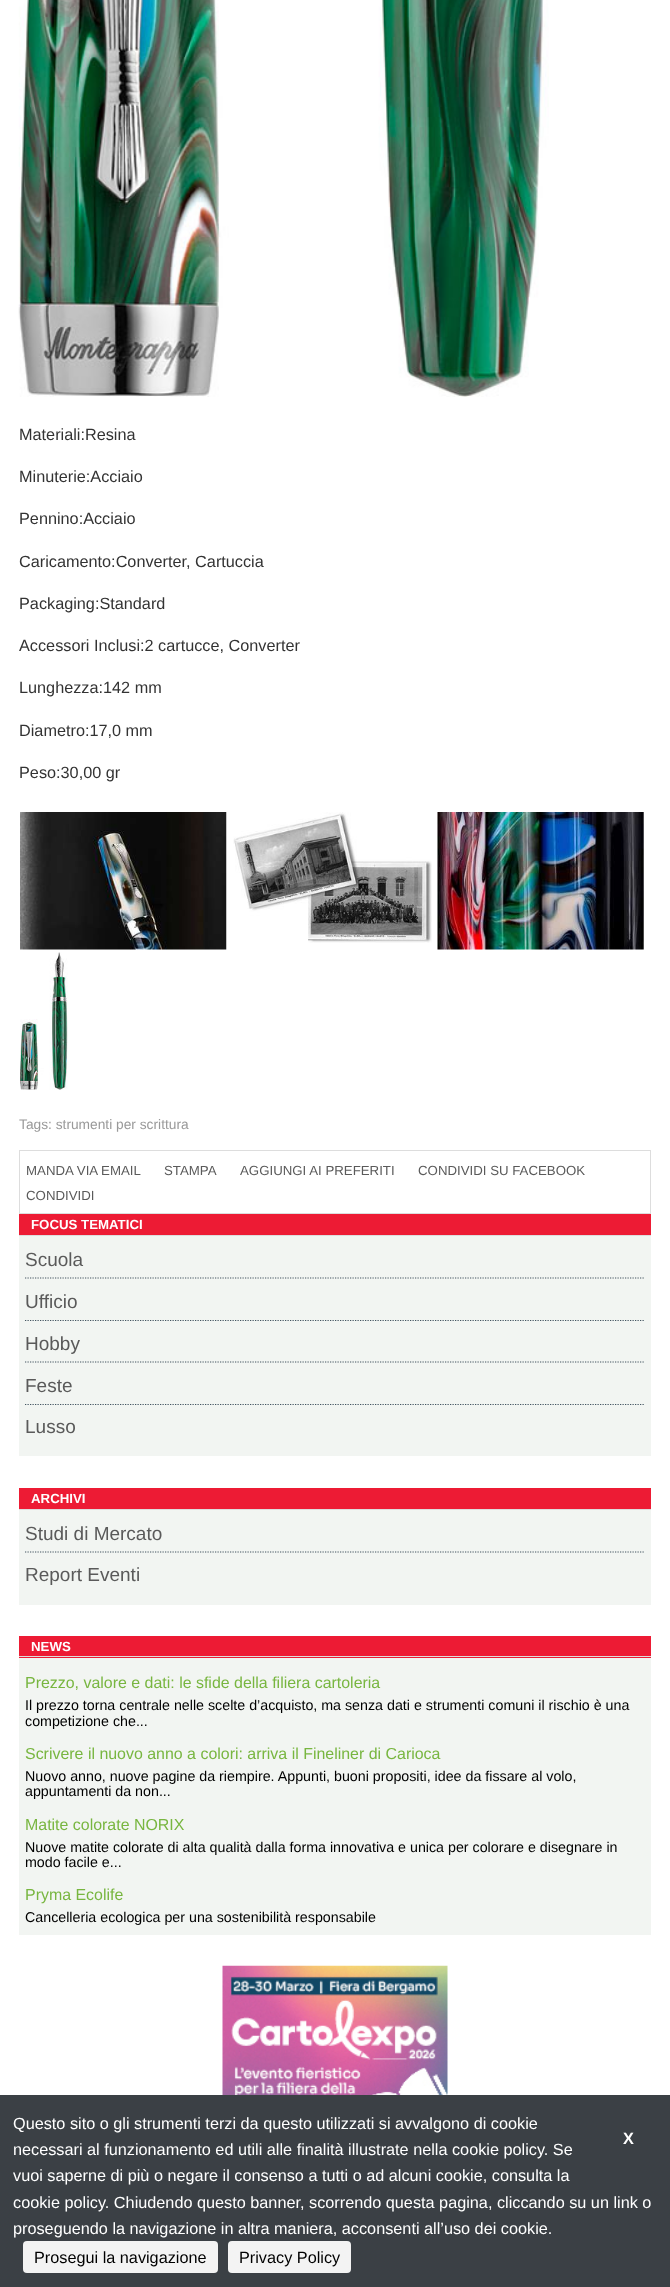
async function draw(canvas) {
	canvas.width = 670;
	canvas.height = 2287;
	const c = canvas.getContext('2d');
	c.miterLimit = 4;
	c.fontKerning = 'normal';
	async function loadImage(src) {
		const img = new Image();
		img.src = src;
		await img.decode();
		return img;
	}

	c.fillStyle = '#fff';
	c.fillRect(0, 0, 670, 2287);
	c.drawImage(await loadImage('img1.png'), 18, 0, 531, 397);
	c.font = '16.25px Liberation Sans';
	c.fillStyle = '#333';
	for (const [text, x, y] of [
		['Materiali:Resina', 19, 440],
		['Minuterie:Acciaio', 19, 482],
		['Pennino:Acciaio', 19, 524],
		['Caricamento:Converter, Cartuccia', 19, 567],
		['Packaging:Standard', 19, 609],
		['Accessori Inclusi:2 cartucce, Converter', 19, 651],
		['Lunghezza:142 mm', 19, 693],
		['Diametro:17,0 mm', 19, 736],
		['Peso:30,00 gr', 19, 778],
	]) {
		c.fillText(text, x, y);
	}
	c.drawImage(await loadImage('img2.png'), 20, 812, 207, 138);
	c.drawImage(await loadImage('img3.png'), 233, 812, 199, 131);
	c.drawImage(await loadImage('img4.png'), 437, 812, 207, 138);
	c.drawImage(await loadImage('img5.png'), 20, 952, 48, 138);
	c.font = '13.75px Liberation Sans';
	c.fillStyle = '#999';
	c.fillText('Tags: strumenti per scrittura', 19, 1129);
	c.strokeStyle = '#ddd';
	c.strokeRect(19.5, 1150.5, 631, 63);
	c.font = '13.25px Liberation Sans';
	c.fillStyle = '#5a5a5a';
	for (const [text, x, y] of [
		['MANDA VIA EMAIL', 26, 1175],
		['STAMPA', 164, 1175],
		['AGGIUNGI AI PREFERITI', 240, 1175],
		['CONDIVIDI SU FACEBOOK', 418, 1175],
		['CONDIVIDI', 26, 1200],
	]) {
		c.fillText(text, x, y);
	}
	for (const [x, y, w, h, color] of [
		[19, 1236, 632, 220, '#f2f5f2'],
		[19, 1214, 632, 21, '#ed1b34'],
		[19, 1235, 632, 1, '#ddd'],
	]) {
		c.fillStyle = color;
		c.fillRect(x, y, w, h);
	}
	c.font = 'bold 13.25px Liberation Sans';
	c.fillStyle = '#fff';
	c.fillText('FOCUS TEMATICI', 31, 1229);
	c.beginPath();
	c.moveTo(25, 1278);
	c.lineTo(645, 1278);
	c.strokeStyle = '#435561';
	c.lineWidth = 1.2;
	c.setLineDash([1.25, 1.25]);
	c.stroke();
	c.font = '19px Liberation Sans';
	c.fillStyle = '#5a5a5a';
	c.fillText('Scuola', 25, 1266);
	c.beginPath();
	c.moveTo(25, 1320.5);
	c.lineTo(645, 1320.5);
	c.stroke();
	c.fillText('Ufficio', 25, 1308);
	c.beginPath();
	c.moveTo(25, 1362);
	c.lineTo(645, 1362);
	c.stroke();
	c.fillText('Hobby', 25, 1350);
	c.beginPath();
	c.moveTo(25, 1404.5);
	c.lineTo(645, 1404.5);
	c.stroke();
	c.fillText('Feste', 25, 1392);
	c.fillText('Lusso', 25, 1433);
	for (const [x, y, w, h, color] of [
		[19, 1510, 632, 95, '#f2f5f2'],
		[19, 1488, 632, 21, '#ed1b34'],
		[19, 1509, 632, 1, '#ddd'],
	]) {
		c.fillStyle = color;
		c.fillRect(x, y, w, h);
	}
	c.font = 'bold 13.25px Liberation Sans';
	c.fillStyle = '#fff';
	c.fillText('ARCHIVI', 31, 1503);
	c.beginPath();
	c.moveTo(25, 1552);
	c.lineTo(645, 1552);
	c.stroke();
	c.font = '19px Liberation Sans';
	c.fillStyle = '#5a5a5a';
	c.fillText('Studi di Mercato', 25, 1540);
	c.fillText('Report Eventi', 25, 1581);
	for (const [x, y, w, h, color] of [
		[19, 1658, 632, 277, '#f2f5f2'],
		[19, 1636, 632, 22, '#ed1b34'],
		[19, 1656, 632, 1, '#ddd'],
	]) {
		c.fillStyle = color;
		c.fillRect(x, y, w, h);
	}
	c.font = 'bold 13.25px Liberation Sans';
	c.fillStyle = '#fff';
	c.fillText('NEWS', 31, 1651);
	c.font = '15.95px Liberation Sans';
	c.fillStyle = '#78b640';
	c.fillText('Prezzo, valore e dati: le sfide della filiera cartoleria', 25, 1688);
	c.font = '14.25px Liberation Sans';
	c.fillStyle = '#000';
	c.fillText('Il prezzo torna centrale nelle scelte d’acquisto, ma senza dati e strumenti comuni il rischio è una', 25, 1710);
	c.fillText('competizione che...', 25, 1726);
	c.font = '15.95px Liberation Sans';
	c.fillStyle = '#78b640';
	c.fillText('Scrivere il nuovo anno a colori: arriva il Fineliner di Carioca', 25, 1759);
	c.font = '14.25px Liberation Sans';
	c.fillStyle = '#000';
	c.fillText('Nuovo anno, nuove pagine da riempire. Appunti, buoni propositi, idee da fissare al volo,', 25, 1781);
	c.fillText('appuntamenti da non...', 25, 1796);
	c.font = '15.95px Liberation Sans';
	c.fillStyle = '#78b640';
	c.fillText('Matite colorate NORIX', 25, 1830);
	c.font = '14.25px Liberation Sans';
	c.fillStyle = '#000';
	c.fillText('Nuove matite colorate di alta qualità dalla forma innovativa e unica per colorare e disegnare in', 25, 1852);
	c.fillText('modo facile e...', 25, 1867);
	c.font = '15.95px Liberation Sans';
	c.fillStyle = '#78b640';
	c.fillText('Pryma Ecolife', 25, 1900);
	c.font = '14.25px Liberation Sans';
	c.fillStyle = '#000';
	c.fillText('Cancelleria ecologica per una sostenibilità responsabile', 25, 1922);
	c.drawImage(await loadImage('img6.png'), 222, 1965, 226, 130);
	c.fillStyle = '#3b4045';
	c.fillRect(0, 2095, 670, 192);
	c.font = '16.25px Liberation Sans';
	c.fillStyle = '#fff';
	c.fillText('Questo sito o gli strumenti terzi da questo utilizzati si avvalgono di cookie', 13, 2129);
	c.font = 'bold 16.25px Liberation Sans';
	c.fillText('X', 623, 2144);
	c.font = '16.25px Liberation Sans';
	for (const [text, x, y] of [
		['necessari al funzionamento ed utili alle finalità illustrate nella cookie policy. Se', 13, 2155],
		['vuoi saperne di più o negare il consenso a tutti o ad alcuni cookie, consulta la', 13, 2181],
		['cookie policy. Chiudendo questo banner, scorrendo questa pagina, cliccando su un link o', 13, 2208],
		['proseguendo la navigazione in altra maniera, acconsenti all’uso dei cookie.', 13, 2234],
	]) {
		c.fillText(text, x, y);
	}
	c.fillStyle = '#f3f3f3';
	c.beginPath();
	c.roundRect(23, 2241, 195, 32, 4);
	c.fill();
	c.fillStyle = '#000';
	c.fillText('Prosegui la navigazione', 34, 2263);
	c.fillStyle = '#f3f3f3';
	c.beginPath();
	c.roundRect(228, 2241, 123, 32, 4);
	c.fill();
	c.fillStyle = '#000';
	c.fillText('Privacy Policy', 239, 2263);
}

draw(document.querySelector('canvas'));
